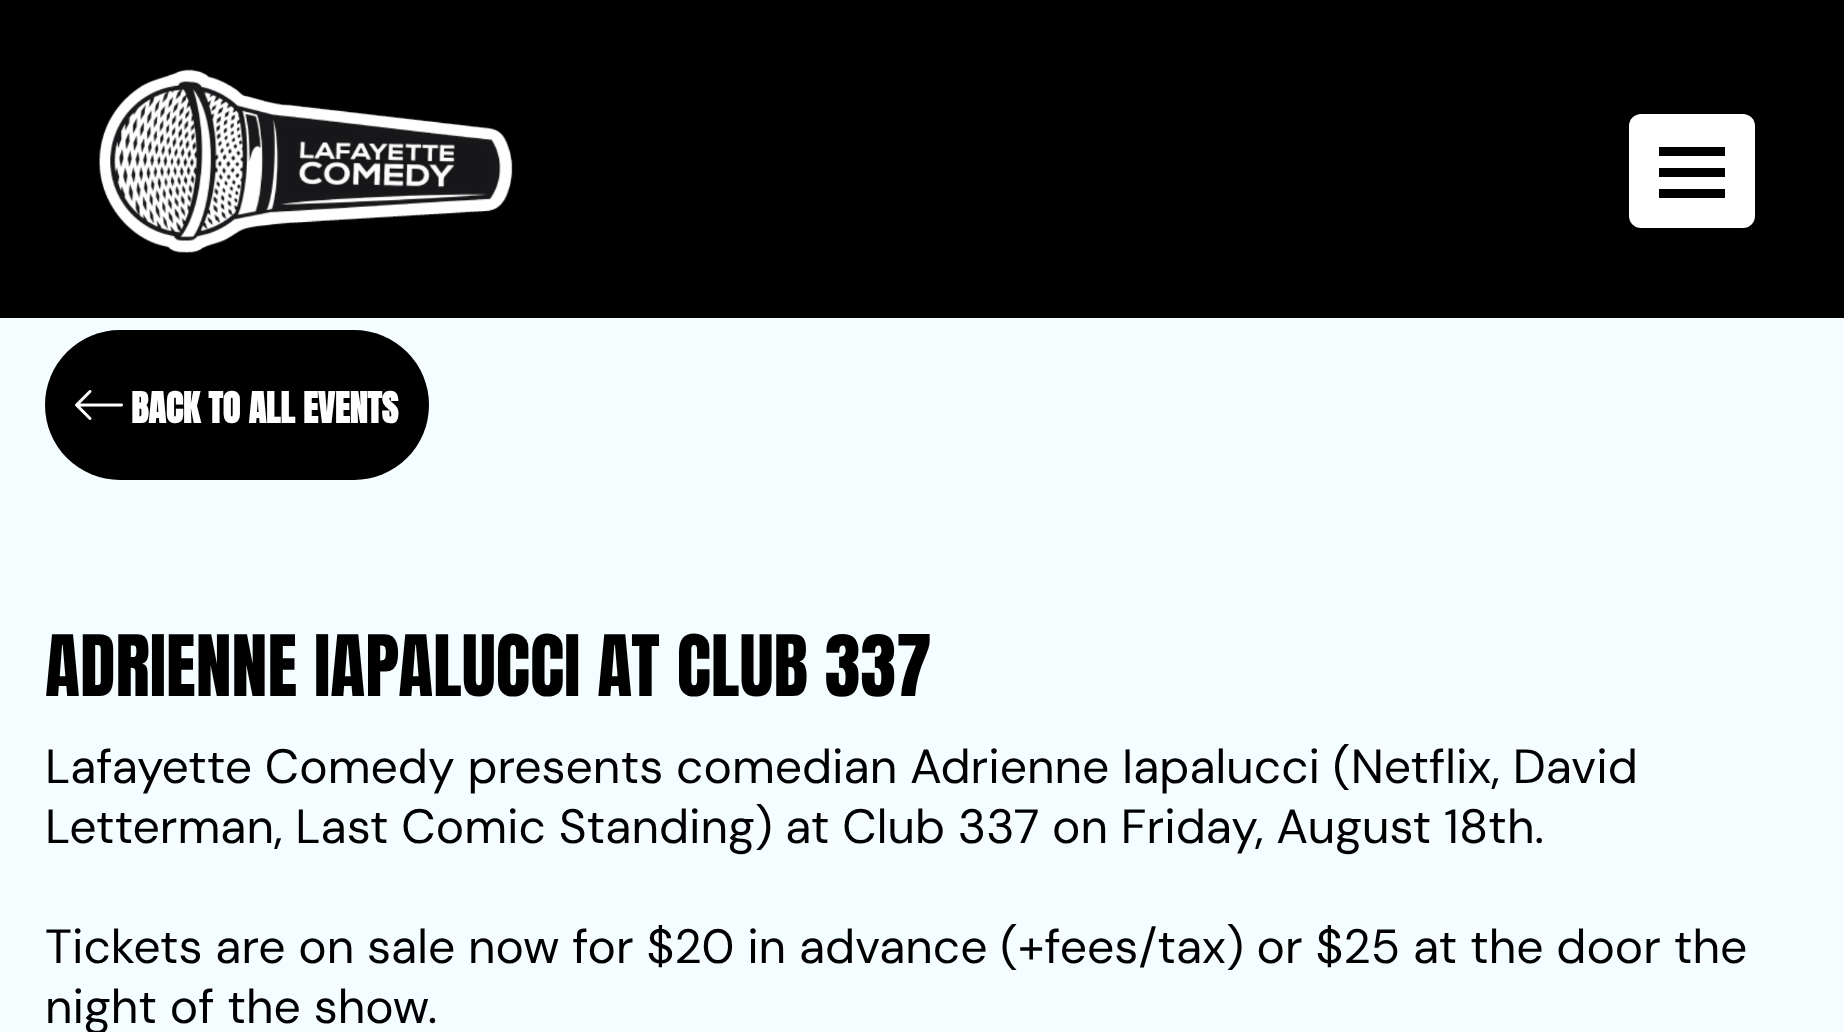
async function draw(canvas) {
	canvas.width = 1844;
	canvas.height = 1032;
	const c = canvas.getContext('2d');
	c.miterLimit = 4;
	c.fontKerning = 'normal';
	async function loadImage(src) {
		const img = new Image();
		img.src = src;
		await img.decode();
		return img;
	}

	c.fillStyle = '#f4fdff';
	c.fillRect(0, 0, 1844, 1032);
	c.fillStyle = '#000';
	c.fillRect(0, 0, 1844, 318);
	c.drawImage(await loadImage('img1.png'), 99, 69, 414, 184);
	c.fillStyle = '#fff';
	c.beginPath();
	c.roundRect(1629, 114, 126, 114, 12);
	c.fill();
	for (const [x, y, w, h, color] of [
		[1659, 147, 66, 9, '#000'],
		[1659, 168, 66, 9, '#000'],
		[1659, 189, 66, 9, '#000'],
	]) {
		c.fillStyle = color;
		c.fillRect(x, y, w, h);
	}
	c.beginPath();
	c.roundRect(45, 330, 384, 150, 75);
	c.fill();
	c.drawImage(await loadImage('img2.png'), 75, 390, 48, 30);
	c.font = 'bold 36px Anton';
	c.fillStyle = '#fff';
	c.fillText('BACK TO ALL EVENTS', 131, 423);
	c.font = '72px Anton';
	c.fillStyle = '#000';
	c.fillText('ADRIENNE IAPALUCCI AT CLUB 337', 45, 696);
	c.font = '48px DM Sans';
	for (const [text, x, y] of [
		['Lafayette Comedy presents comedian Adrienne Iapalucci (Netflix, David', 45, 783],
		['Letterman, Last Comic Standing) at Club 337 on Friday, August 18th.', 45, 843],
		['Tickets are on sale now for $20 in advance (+fees/tax) or $25 at the door the', 45, 963],
		['night of the show.', 45, 1023],
	]) {
		c.fillText(text, x, y);
	}
}

draw(document.querySelector('canvas'));
